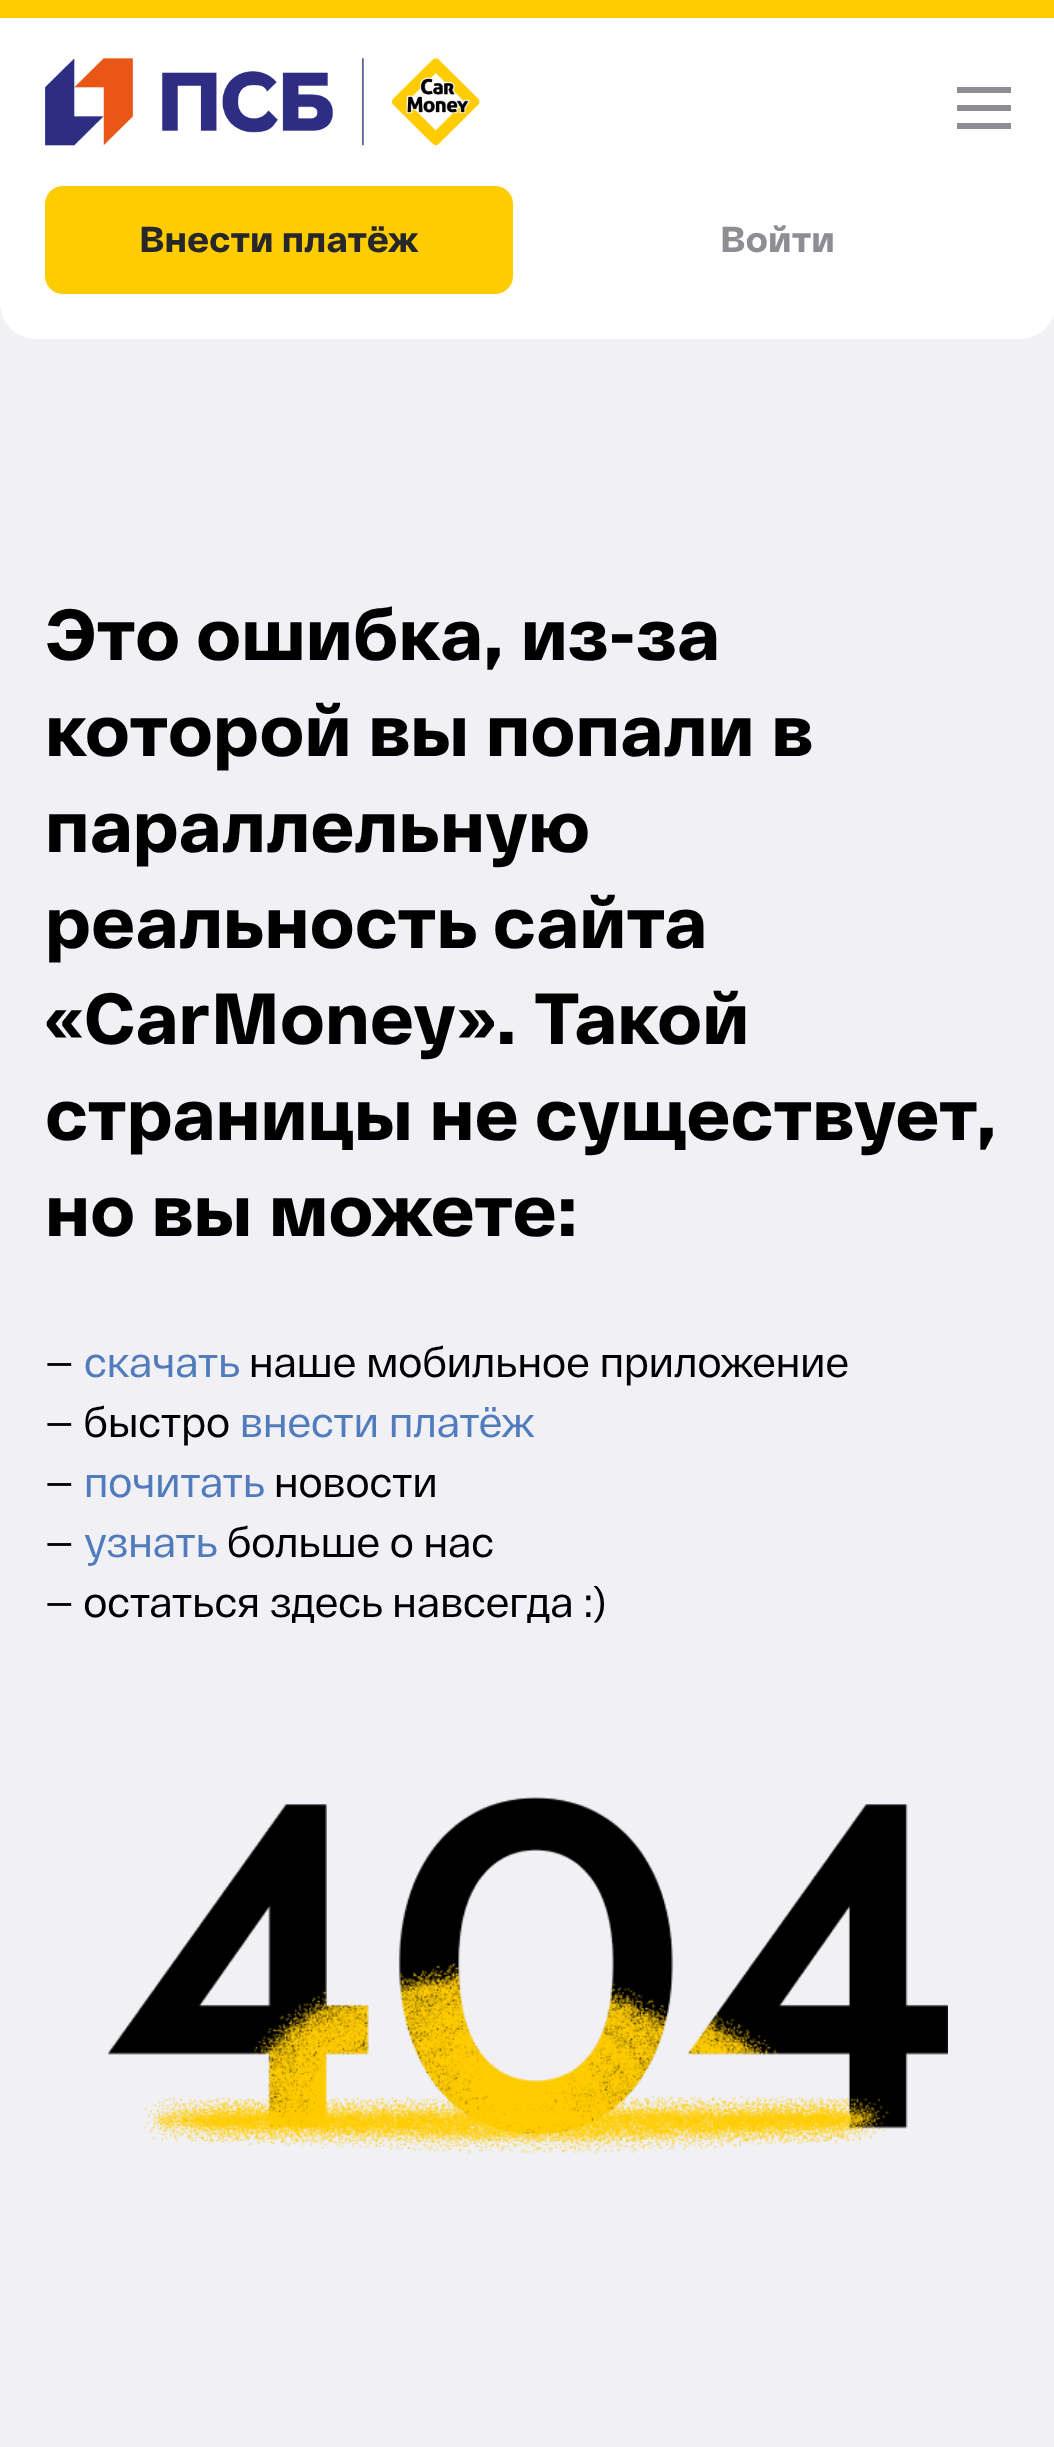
async function draw(canvas) {
	canvas.width = 1054;
	canvas.height = 2447;
	const c = canvas.getContext('2d');
	c.miterLimit = 4;
	c.fontKerning = 'normal';
	async function loadImage(src) {
		const img = new Image();
		img.src = src;
		await img.decode();
		return img;
	}

	c.fillStyle = '#f0f0f5';
	c.fillRect(0, 0, 1054, 2447);
	c.fillStyle = '#fff';
	c.beginPath();
	c.moveTo(0, 0);
	c.lineTo(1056, 0);
	c.lineTo(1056, 303);
	c.bezierCurveTo(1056, 323, 1040, 339, 1020, 339);
	c.lineTo(36, 339);
	c.bezierCurveTo(16, 339, 0, 323, 0, 303);
	c.closePath();
	c.fill();
	c.fillStyle = '#fc0';
	c.fillRect(0, 0, 1054, 18);
	c.drawImage(await loadImage('img1.png'), 45, 57, 435, 89);
	for (const [x, y, w, h, color] of [
		[957, 87, 54, 6, '#8d8d94'],
		[957, 105, 54, 6, '#8d8d94'],
		[957, 123, 54, 6, '#8d8d94'],
	]) {
		c.fillStyle = color;
		c.fillRect(x, y, w, h);
	}
	c.fillStyle = '#fc0';
	c.beginPath();
	c.roundRect(45, 186, 468, 108, 18);
	c.fill();
	c.font = '800 36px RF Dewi';
	c.fillStyle = '#272729';
	c.fillText('Внести платёж', 139, 252);
	c.fillStyle = '#8d8d94';
	c.fillText('Войти', 720, 252);
	c.font = '800 72px RF Dewi';
	c.fillStyle = '#000';
	for (const [text, x, y] of [
		['Это ошибка, из-за', 45, 660],
		['которой вы попали в', 45, 756],
		['параллельную', 45, 852],
		['реальность сайта', 45, 948],
		['«CarMoney».', 45, 1044],
		['Такой', 534, 1044],
		['страницы не существует,', 45, 1140],
		['но вы можете:', 45, 1236],
	]) {
		c.fillText(text, x, y);
	}
	c.font = '42px RF Dewi';
	c.fillText('—', 45, 1377);
	c.fillStyle = '#507bbc';
	c.fillText('скачать', 84, 1377);
	c.fillStyle = '#000';
	c.fillText('наше мобильное приложение', 249, 1377);
	c.fillText('— быстро', 45, 1437);
	c.fillStyle = '#507bbc';
	c.fillText('внести платёж', 240, 1437);
	c.fillStyle = '#000';
	c.fillText('—', 45, 1497);
	c.fillStyle = '#507bbc';
	c.fillText('почитать', 84, 1497);
	c.fillStyle = '#000';
	c.fillText('новости', 274, 1497);
	c.fillText('—', 45, 1557);
	c.fillStyle = '#507bbc';
	c.fillText('узнать', 84, 1557);
	c.fillStyle = '#000';
	c.fillText('больше о нас', 227, 1557);
	c.fillText('— остаться здесь навсегда :)', 45, 1617);
	c.drawImage(await loadImage('img2.png'), 108, 1797, 840, 357);
}

draw(document.querySelector('canvas'));
